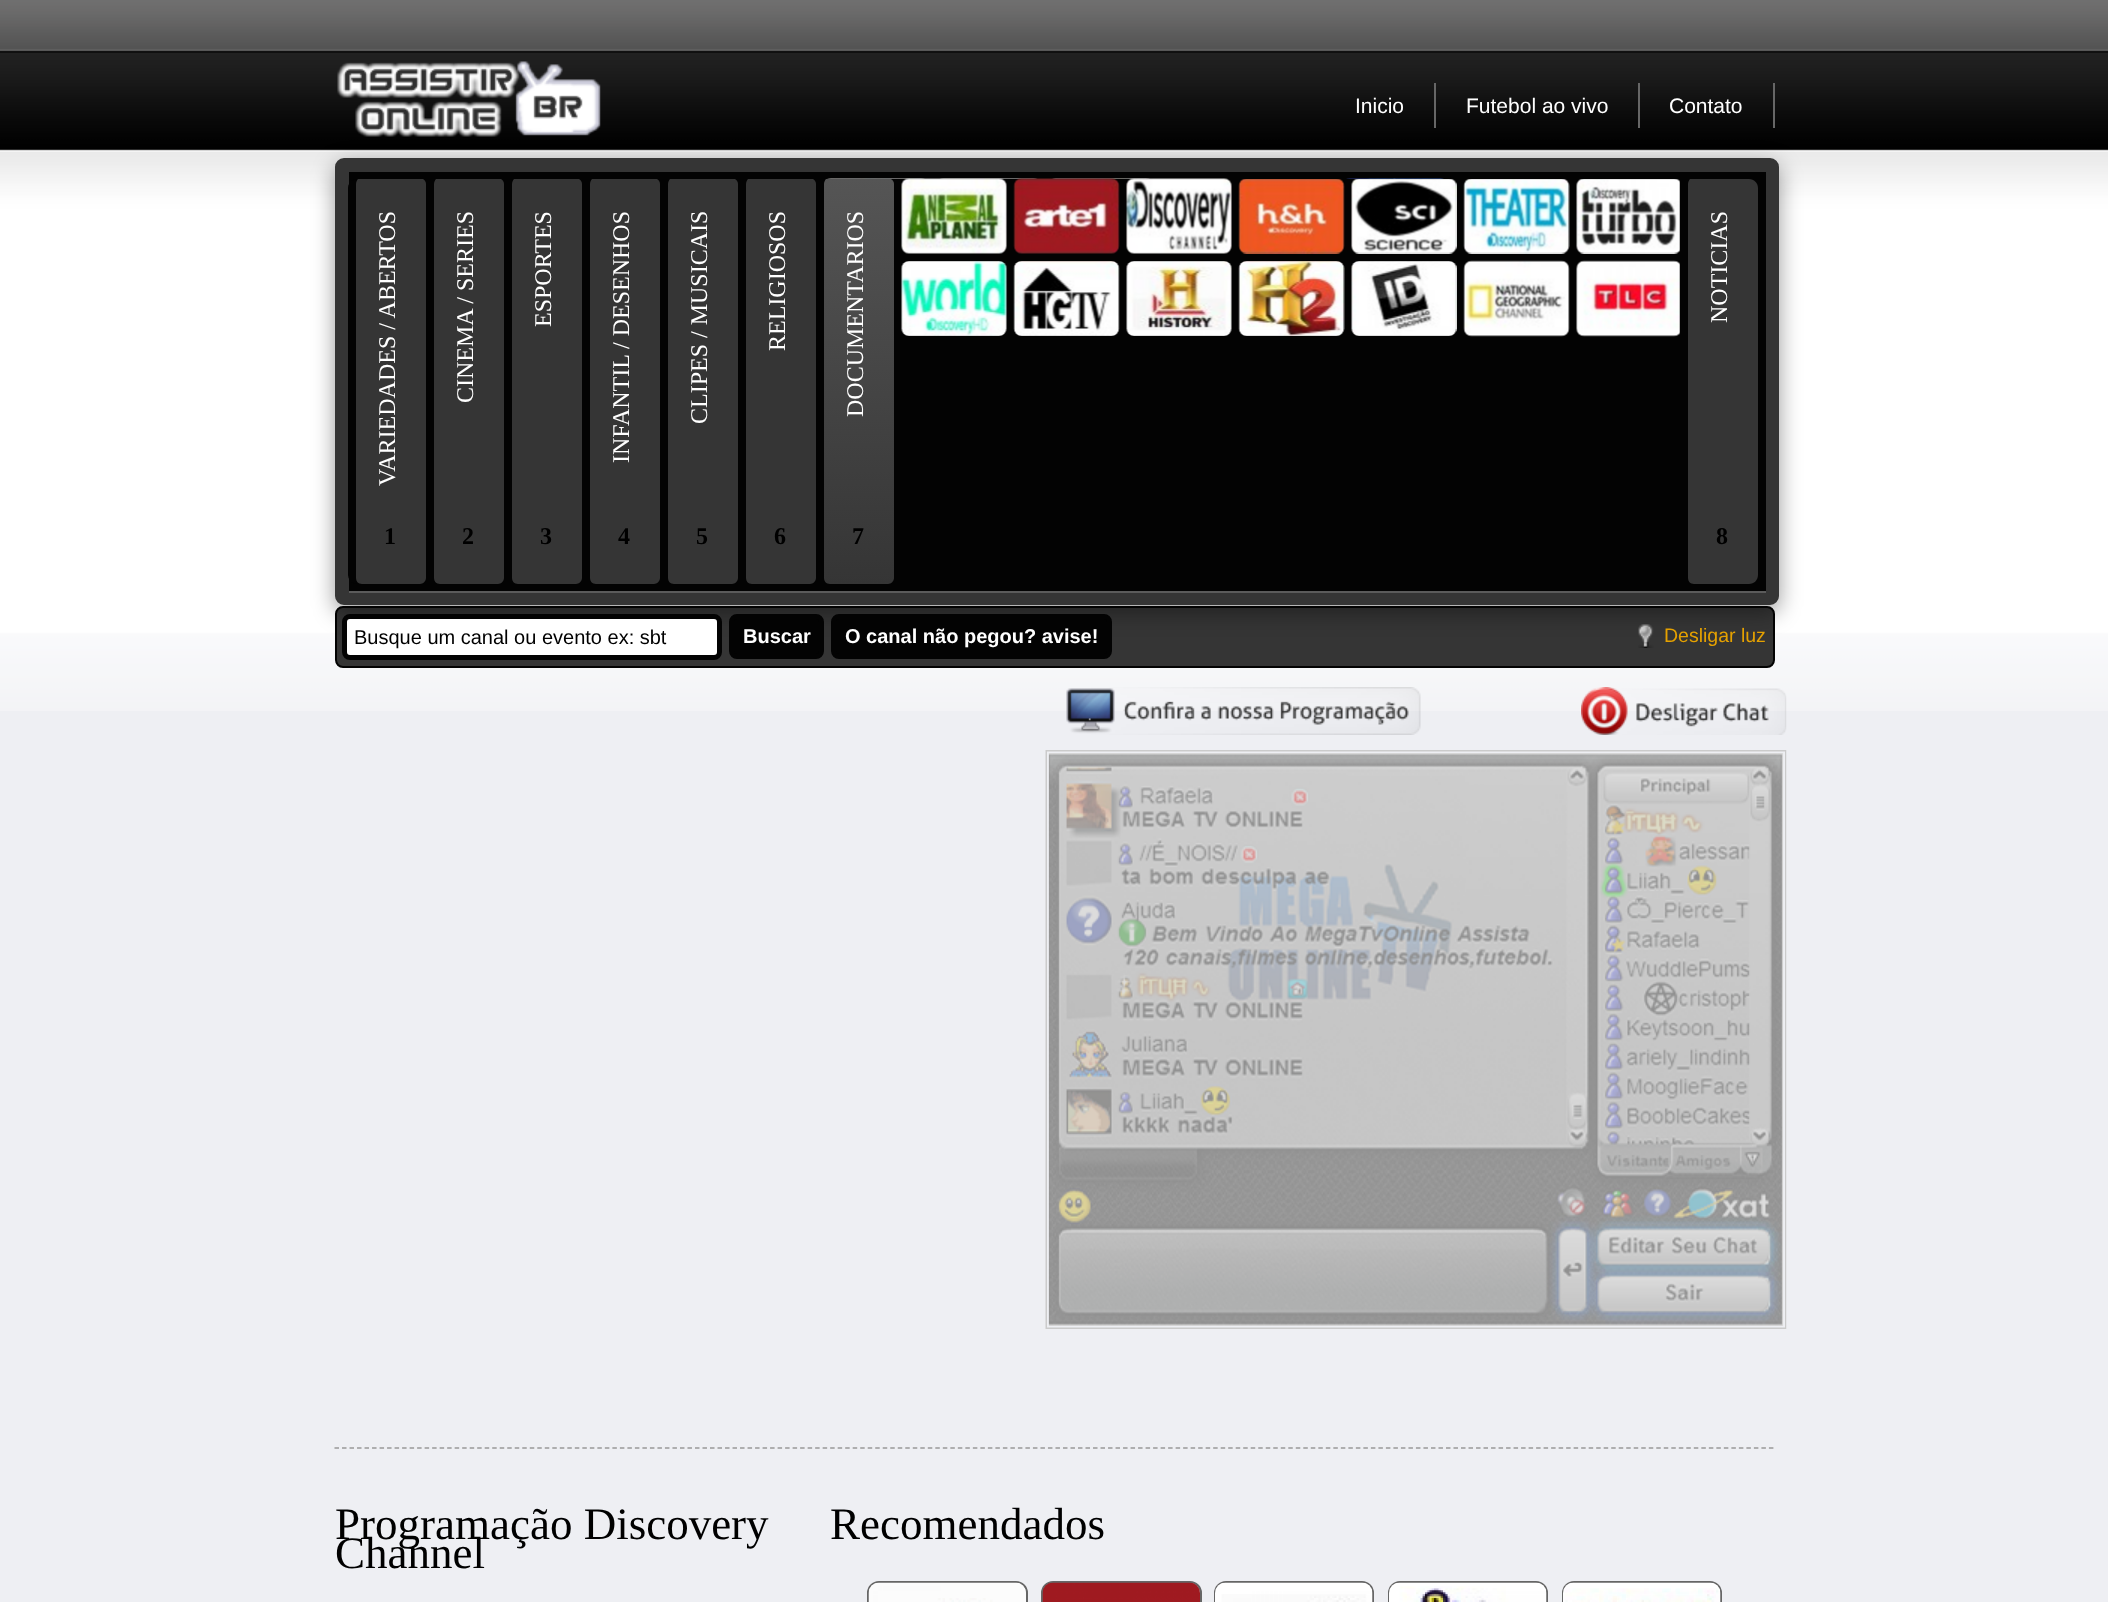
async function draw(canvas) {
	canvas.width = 2108;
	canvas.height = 1602;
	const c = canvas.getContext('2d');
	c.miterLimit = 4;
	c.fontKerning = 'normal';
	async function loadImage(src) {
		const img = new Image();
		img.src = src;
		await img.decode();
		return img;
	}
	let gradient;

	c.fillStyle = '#eeeff3';
	c.fillRect(0, 0, 2108, 1602);
	c.drawImage(await loadImage('img1.png'), 0, 0, 2108, 711);
	c.drawImage(await loadImage('img2.png'), 337, 61, 264, 76);
	c.fillStyle = '#666';
	c.fillRect(1434, 83, 2, 45);
	c.font = '21px Liberation Sans';
	c.fillStyle = '#fff';
	c.fillText('Inicio', 1355, 113);
	c.fillStyle = '#666';
	c.fillRect(1638, 83, 2, 45);
	c.fillStyle = '#fff';
	c.fillText('Futebol ao vivo', 1466, 113);
	c.fillStyle = '#666';
	c.fillRect(1773, 83, 2, 45);
	c.fillStyle = '#fff';
	c.fillText('Contato', 1669, 113);
	c.fillStyle = '#353535';
	c.beginPath();
	c.roundRect(336, 607, 1438, 60, 7);
	c.fill();
	c.strokeStyle = '#030303';
	c.lineWidth = 2;
	c.stroke();
	c.fillStyle = '#00000066';
	c.filter = 'blur(11px)';
	c.beginPath();
	c.roundRect(335, 165, 1444, 447, 9);
	c.fill();
	c.filter = 'none';
	c.fillStyle = '#030303';
	c.fillRect(349, 172, 1417, 419);
	c.fillStyle = '#5b5b5b';
	c.fillRect(348, 591, 1418, 2);
	c.beginPath();
	c.roundRect(341, 164, 1432, 435, 3);
	c.strokeStyle = '#353535';
	c.lineWidth = 12;
	c.stroke();
	for (const [x, y, w, h, color] of [
		[339, 170, 1436, 2, '#353535'],
		[1766, 172, 1, 428, '#353535'],
		[347, 172, 2, 428, '#353535'],
	]) {
		c.fillStyle = color;
		c.fillRect(x, y, w, h);
	}
	c.fillStyle = '#030303';
	c.beginPath();
	c.roundRect(348, 179, 78, 405, [9, 0, 0, 9]);
	c.fill();
	c.fillStyle = '#353535';
	c.beginPath();
	c.moveTo(356, 578);
	c.bezierCurveTo(356, 581, 358, 584, 362, 584);
	c.lineTo(420, 584);
	c.bezierCurveTo(423, 584, 426, 581, 426, 578);
	c.lineTo(426, 184);
	c.bezierCurveTo(426, 182, 425, 180, 423, 179);
	c.lineTo(358, 179);
	c.bezierCurveTo(357, 180, 356, 182, 356, 184);
	c.closePath();
	c.fill();
	c.font = '24px Liberation Serif';
	c.fillStyle = '#fff';
	c.save();
	c.translate(395, 486);
	c.rotate(-90 * Math.PI / 180);
	c.fillText('VARIEDADES / ABERTOS', 0, 0);
	c.restore();
	c.font = 'bold 24px Liberation Serif';
	c.fillStyle = '#000';
	c.fillText('1', 384, 544);
	c.fillStyle = '#353535';
	c.beginPath();
	c.moveTo(434, 578);
	c.bezierCurveTo(434, 581, 436, 584, 440, 584);
	c.lineTo(498, 584);
	c.bezierCurveTo(501, 584, 504, 581, 504, 578);
	c.lineTo(504, 184);
	c.bezierCurveTo(504, 182, 503, 180, 501, 179);
	c.lineTo(436, 179);
	c.bezierCurveTo(435, 180, 434, 182, 434, 184);
	c.closePath();
	c.fill();
	c.font = '24px Liberation Serif';
	c.fillStyle = '#fff';
	c.save();
	c.translate(473, 403);
	c.rotate(-90 * Math.PI / 180);
	c.fillText('CINEMA / SERIES', 0, 0);
	c.restore();
	c.font = 'bold 24px Liberation Serif';
	c.fillStyle = '#000';
	c.fillText('2', 462, 544);
	c.fillStyle = '#353535';
	c.beginPath();
	c.moveTo(512, 578);
	c.bezierCurveTo(512, 581, 514, 584, 518, 584);
	c.lineTo(576, 584);
	c.bezierCurveTo(579, 584, 582, 581, 582, 578);
	c.lineTo(582, 184);
	c.bezierCurveTo(582, 182, 581, 180, 579, 179);
	c.lineTo(514, 179);
	c.bezierCurveTo(513, 180, 512, 182, 512, 184);
	c.closePath();
	c.fill();
	c.font = '24px Liberation Serif';
	c.fillStyle = '#fff';
	c.save();
	c.translate(551, 327);
	c.rotate(-90 * Math.PI / 180);
	c.fillText('ESPORTES', 0, 0);
	c.restore();
	c.font = 'bold 24px Liberation Serif';
	c.fillStyle = '#000';
	c.fillText('3', 540, 544);
	c.drawImage(await loadImage('img3.png'), 1346, 178, 98, 1);
	c.fillStyle = '#353535';
	c.beginPath();
	c.moveTo(590, 578);
	c.bezierCurveTo(590, 581, 592, 584, 596, 584);
	c.lineTo(654, 584);
	c.bezierCurveTo(657, 584, 660, 581, 660, 578);
	c.lineTo(660, 184);
	c.bezierCurveTo(660, 182, 659, 180, 657, 179);
	c.lineTo(592, 179);
	c.bezierCurveTo(591, 180, 590, 182, 590, 184);
	c.closePath();
	c.fill();
	c.font = '24px Liberation Serif';
	c.fillStyle = '#fff';
	c.save();
	c.translate(629, 463);
	c.rotate(-90 * Math.PI / 180);
	c.fillText('INFANTIL / DESENHOS', 0, 0);
	c.restore();
	c.font = 'bold 24px Liberation Serif';
	c.fillStyle = '#000';
	c.fillText('4', 618, 544);
	c.fillStyle = '#353535';
	c.beginPath();
	c.moveTo(668, 578);
	c.bezierCurveTo(668, 581, 670, 584, 674, 584);
	c.lineTo(732, 584);
	c.bezierCurveTo(735, 584, 738, 581, 738, 578);
	c.lineTo(738, 184);
	c.bezierCurveTo(738, 182, 737, 180, 735, 179);
	c.lineTo(670, 179);
	c.bezierCurveTo(669, 180, 668, 182, 668, 184);
	c.closePath();
	c.fill();
	c.font = '24px Liberation Serif';
	c.fillStyle = '#fff';
	c.save();
	c.translate(707, 424);
	c.rotate(-90 * Math.PI / 180);
	c.fillText('CLIPES / MUSICAIS', 0, 0);
	c.restore();
	c.font = 'bold 24px Liberation Serif';
	c.fillStyle = '#000';
	c.fillText('5', 696, 544);
	c.drawImage(await loadImage('img4.png'), 827, 178, 98, 1);
	c.drawImage(await loadImage('img5.png'), 939, 178, 99, 1);
	c.drawImage(await loadImage('img6.png'), 1052, 178, 98, 1);
	c.fillStyle = '#353535';
	c.beginPath();
	c.moveTo(746, 578);
	c.bezierCurveTo(746, 581, 748, 584, 752, 584);
	c.lineTo(810, 584);
	c.bezierCurveTo(813, 584, 816, 581, 816, 578);
	c.lineTo(816, 184);
	c.bezierCurveTo(816, 182, 815, 180, 813, 179);
	c.lineTo(748, 179);
	c.bezierCurveTo(747, 180, 746, 182, 746, 184);
	c.closePath();
	c.fill();
	c.font = '24px Liberation Serif';
	c.fillStyle = '#fff';
	c.save();
	c.translate(785, 351);
	c.rotate(-90 * Math.PI / 180);
	c.fillText('RELIGIOSOS', 0, 0);
	c.restore();
	c.font = 'bold 24px Liberation Serif';
	c.fillStyle = '#000';
	c.fillText('6', 774, 544);
	gradient = c.createLinearGradient(859, 584, 859, 179);
	gradient.addColorStop(0, '#353535');
	gradient.addColorStop(1, '#555');
	c.fillStyle = gradient;
	c.beginPath();
	c.moveTo(824, 578);
	c.bezierCurveTo(824, 581, 826, 584, 830, 584);
	c.lineTo(888, 584);
	c.bezierCurveTo(891, 584, 894, 581, 894, 578);
	c.lineTo(894, 184);
	c.bezierCurveTo(894, 182, 893, 180, 891, 179);
	c.lineTo(826, 179);
	c.bezierCurveTo(825, 180, 824, 182, 824, 184);
	c.closePath();
	c.fill();
	c.font = '24px Liberation Serif';
	c.fillStyle = '#fff';
	c.save();
	c.translate(863, 417);
	c.rotate(-90 * Math.PI / 180);
	c.fillText('DOCUMENTARIOS', 0, 0);
	c.restore();
	c.font = 'bold 24px Liberation Serif';
	c.fillStyle = '#000';
	c.fillText('7', 852, 544);
	c.drawImage(await loadImage('img7.png'), 901, 178, 106, 76);
	c.drawImage(await loadImage('img8.png'), 1013, 178, 107, 76);
	c.drawImage(await loadImage('img9.png'), 1126, 178, 106, 76);
	c.drawImage(await loadImage('img10.png'), 1238, 179, 107, 75);
	c.drawImage(await loadImage('img11.png'), 1351, 179, 106, 75);
	c.drawImage(await loadImage('img12.png'), 1463, 179, 107, 75);
	c.drawImage(await loadImage('img13.png'), 1576, 179, 104, 75);
	c.drawImage(await loadImage('img14.png'), 901, 261, 106, 75);
	c.drawImage(await loadImage('img15.png'), 1013, 261, 107, 75);
	c.drawImage(await loadImage('img16.png'), 1126, 261, 106, 75);
	c.drawImage(await loadImage('img17.png'), 1238, 261, 107, 75);
	c.drawImage(await loadImage('img18.png'), 1351, 261, 106, 75);
	c.drawImage(await loadImage('img19.png'), 1463, 260, 107, 77);
	c.drawImage(await loadImage('img20.png'), 1576, 260, 104, 77);
	c.fillStyle = '#353535';
	c.beginPath();
	c.moveTo(1688, 578);
	c.bezierCurveTo(1688, 581, 1690, 584, 1694, 584);
	c.lineTo(1749, 584);
	c.bezierCurveTo(1754, 584, 1758, 580, 1758, 575);
	c.lineTo(1758, 188);
	c.bezierCurveTo(1758, 183, 1754, 179, 1749, 179);
	c.lineTo(1690, 179);
	c.bezierCurveTo(1689, 180, 1688, 182, 1688, 184);
	c.closePath();
	c.fill();
	c.font = '24px Liberation Serif';
	c.fillStyle = '#fff';
	c.save();
	c.translate(1727, 323);
	c.rotate(-90 * Math.PI / 180);
	c.fillText('NOTICIAS', 0, 0);
	c.restore();
	c.font = 'bold 24px Liberation Serif';
	c.fillStyle = '#000';
	c.fillText('8', 1716, 544);
	c.fillStyle = '#fff';
	c.beginPath();
	c.roundRect(344.5, 616.5, 375, 41, 5.5);
	c.fill();
	c.strokeStyle = '#030303';
	c.lineWidth = 5;
	c.stroke();
	c.font = '20px Liberation Sans';
	c.fillStyle = '#000';
	c.fillText('Busque um canal ou evento ex: sbt', 354, 644);
	c.fillStyle = '#030303';
	c.beginPath();
	c.roundRect(731.5, 616.5, 90, 40, 5.5);
	c.fill();
	c.stroke();
	c.font = 'bold 20px Liberation Sans';
	c.fillStyle = '#fff';
	c.fillText('Buscar', 743, 643);
	c.fillStyle = '#030303';
	c.beginPath();
	c.roundRect(833.5, 616.5, 276, 40, 5.5);
	c.fill();
	c.stroke();
	c.fillStyle = '#fff';
	c.fillText('O canal não pegou? avise!', 845, 643);
	c.drawImage(await loadImage('img21.png'), 1638, 624, 16, 24);
	c.font = '19.5px Liberation Sans';
	c.fillStyle = '#e5a100';
	c.fillText('Desligar luz', 1664, 642);
	c.drawImage(await loadImage('img22.png'), 1045, 687, 742, 642);
	c.beginPath();
	c.moveTo(334.5, 1448);
	c.lineTo(1774.5, 1448);
	c.strokeStyle = '#999';
	c.lineWidth = 1.5;
	c.setLineDash([4.5, 3.01]);
	c.stroke();
	c.font = '45px Liberation Serif';
	c.fillStyle = '#000';
	for (const [text, x, y] of [
		['Programação Discovery', 335, 1539],
		['Channel', 335, 1568],
		['Recomendados', 830, 1539],
	]) {
		c.fillText(text, x, y);
	}
	c.beginPath();
	c.roundRect(868, 1582, 159, 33, 11);
	c.strokeStyle = '#666';
	c.lineWidth = 2;
	c.setLineDash([]);
	c.stroke();
	c.beginPath();
	c.roundRect(1042, 1582, 159, 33, 11);
	c.stroke();
	c.beginPath();
	c.roundRect(1215, 1582, 158, 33, 11);
	c.stroke();
	c.beginPath();
	c.roundRect(1389, 1582, 158, 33, 11);
	c.stroke();
	c.beginPath();
	c.roundRect(1563, 1582, 158, 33, 11);
	c.stroke();
	c.drawImage(await loadImage('img23.png'), 868, 1582, 158, 20);
	c.drawImage(await loadImage('img24.png'), 1042, 1582, 158, 20);
	c.drawImage(await loadImage('img25.png'), 1215, 1582, 158, 20);
	c.drawImage(await loadImage('img26.png'), 1389, 1582, 158, 20);
	c.drawImage(await loadImage('img27.png'), 1563, 1582, 158, 20);
}

draw(document.querySelector('canvas'));
